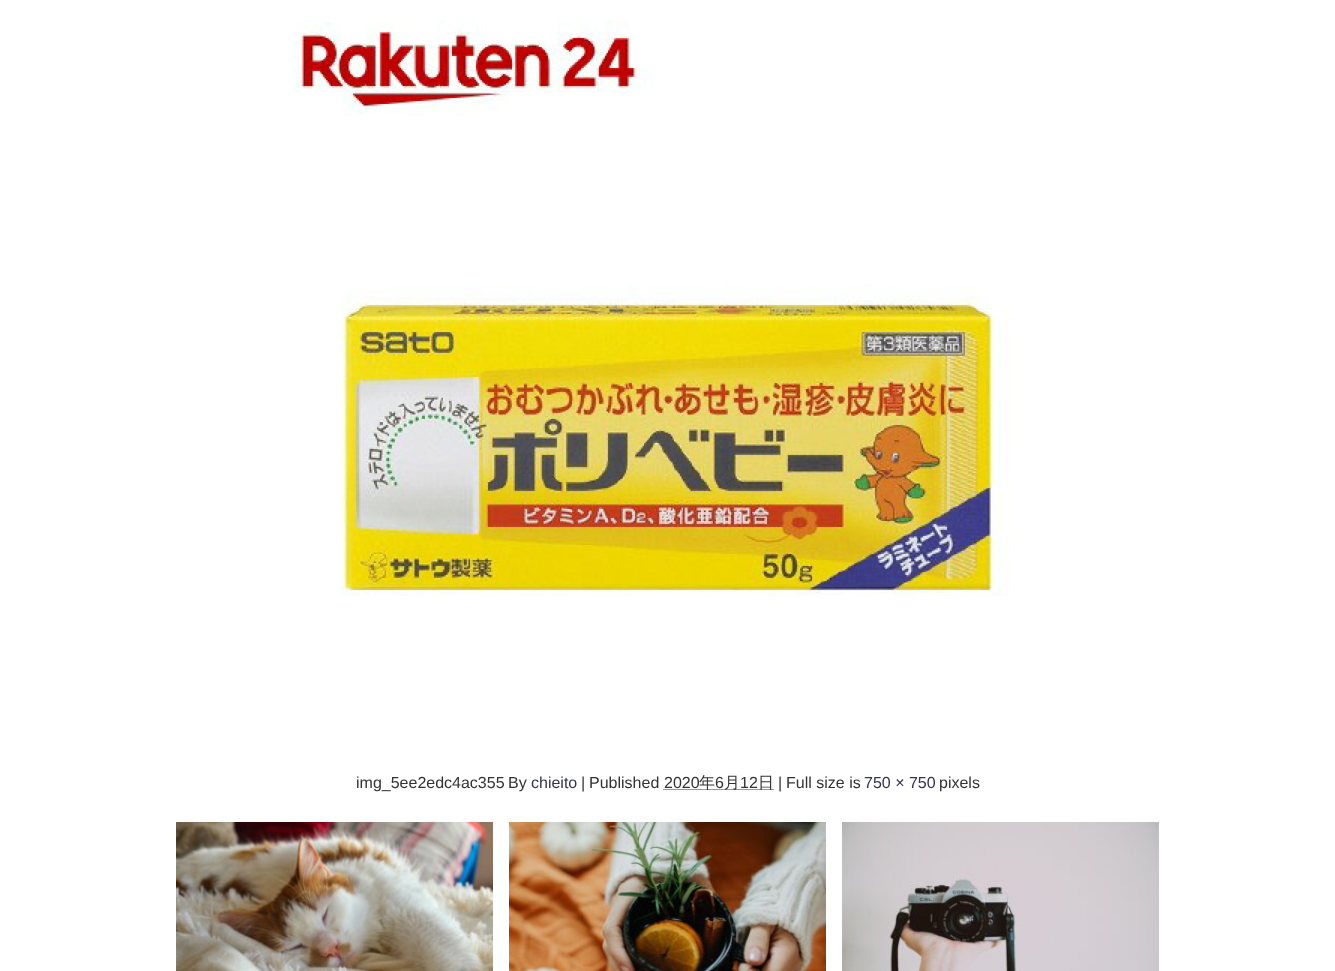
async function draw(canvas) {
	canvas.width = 1335;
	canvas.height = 971;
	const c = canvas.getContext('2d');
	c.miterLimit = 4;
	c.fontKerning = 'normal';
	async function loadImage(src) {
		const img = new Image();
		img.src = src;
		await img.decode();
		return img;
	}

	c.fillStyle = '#fff';
	c.fillRect(0, 0, 1335, 971);
	c.drawImage(await loadImage('img1.png'), 293, 20, 720, 576);
	c.font = '16px Liberation Sans';
	c.fillStyle = '#333';
	c.fillText('img_5ee2edc4ac355', 356, 788);
	c.fillText('By', 508, 788);
	c.fillStyle = '#335';
	c.fillText('chieito', 531, 788);
	c.fillStyle = '#333';
	for (const [text, x, y] of [
		['|', 581, 788],
		['Published', 589, 788],
		['2020', 664, 788],
	]) {
		c.fillText(text, x, y);
	}
	c.beginPath();
	c.moveTo(663.5, 789.5);
	c.lineTo(774, 789.5);
	c.strokeStyle = '#333';
	c.setLineDash([1, 1]);
	c.stroke();
	c.font = '500 16px WenQuanYi Zen Hei';
	c.fillText('年', 699, 788);
	c.font = '16px Liberation Sans';
	c.fillText('6', 715, 788);
	c.font = '500 16px WenQuanYi Zen Hei';
	c.fillText('月', 724, 788);
	c.font = '16px Liberation Sans';
	c.fillText('12', 740, 788);
	c.font = '500 16px WenQuanYi Zen Hei';
	c.fillText('日', 758, 788);
	c.font = '16px Liberation Sans';
	c.fillText('|', 778, 788);
	c.fillText('Full size is', 786, 788);
	c.fillStyle = '#335';
	c.fillText('750 × 750', 864, 788);
	c.fillStyle = '#333';
	c.fillText('pixels', 939, 788);
	c.drawImage(await loadImage('img2.png'), 176, 822, 317, 149);
	c.drawImage(await loadImage('img3.png'), 509, 822, 317, 149);
	c.drawImage(await loadImage('img4.png'), 842, 822, 317, 149);
}

draw(document.querySelector('canvas'));
